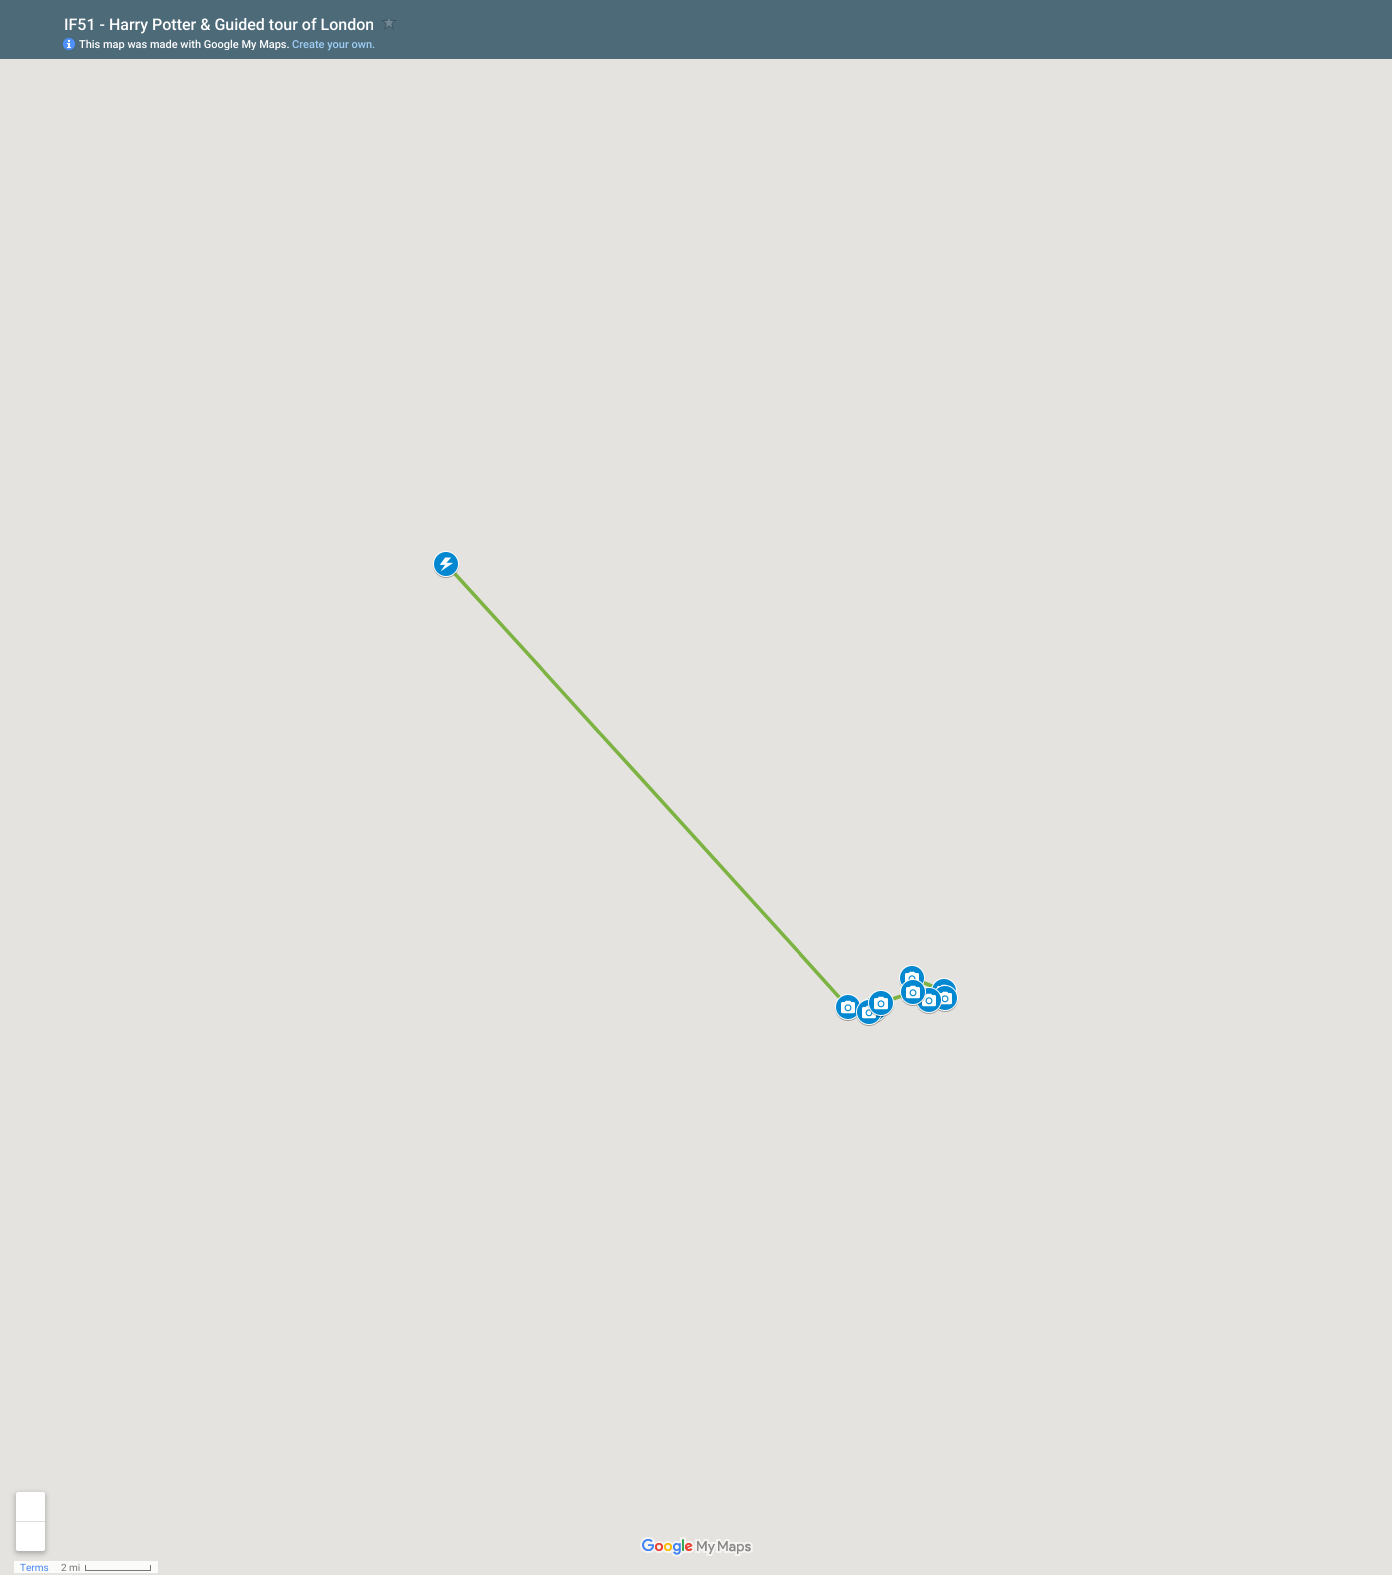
#include <cairo.h>
#include <math.h>
#include <stddef.h>

static cairo_t *c;
static void C(unsigned color){cairo_set_source_rgb(c, (color >> 16) / 255.0, (color >> 8 & 255) / 255.0, (color & 255) / 255.0);}
static void F(const char *family, double size, int italic, int bold){cairo_select_font_face(c, family, italic ? CAIRO_FONT_SLANT_ITALIC : CAIRO_FONT_SLANT_NORMAL,bold ? CAIRO_FONT_WEIGHT_BOLD : CAIRO_FONT_WEIGHT_NORMAL);cairo_set_font_size(c, size);}
static void T(double x, double y, const char *s){cairo_move_to(c, x, y);cairo_show_text(c, s);}
static void R(double x, double y, double w, double h){cairo_rectangle(c, x, y, w, h);cairo_fill(c);}
static void Q(double x, double y, double w, double h, double r){cairo_new_sub_path(c);cairo_arc(c, x + w - r, y + h - r, r, 0, M_PI / 2);cairo_arc(c, x + r, y + h - r, r, M_PI / 2, M_PI);cairo_arc(c, x + r, y + r, r, M_PI, 1.5 * M_PI);cairo_arc(c, x + w - r, y + r, r, 1.5 * M_PI, 2 * M_PI);cairo_close_path(c);}
static void S(double x, double y, double w, double h, double r, double blur, double alpha){cairo_push_group_with_content(c, CAIRO_CONTENT_ALPHA);cairo_set_operator(c, CAIRO_OPERATOR_SOURCE);for (int i = 15; i >= -15 && fmin(w, h) + blur * i / 3 > 0; i -= 2) {double e = blur * i / 6;cairo_set_source_rgba(c, 0, 0, 0, alpha * erfc((i - 1) / 8.5) / 2);Q(x - e, y - e, w + 2 * e, h + 2 * e, fmax(0, fmin(r + e + blur * .6, fmin(w, h) / 2 + e)));cairo_fill(c);}cairo_pattern_t *soft = cairo_pop_group(c);cairo_mask(c, soft);cairo_pattern_destroy(soft);}
static void I(const char *path, double x, double y, double w, double h){cairo_surface_t *image = cairo_image_surface_create_from_png(path);cairo_save(c);cairo_set_source_surface(c, image, x, y);cairo_rectangle(c, x, y, w, h);cairo_fill(c);cairo_restore(c);cairo_surface_destroy(image);}
int main(void) {
cairo_surface_t *surface = cairo_image_surface_create(CAIRO_FORMAT_RGB24, 1392, 1575);
c = cairo_create(surface);
cairo_font_options_t *options = cairo_font_options_create();
cairo_font_options_set_hint_metrics(options, CAIRO_HINT_METRICS_OFF);
cairo_font_options_set_hint_style(options, CAIRO_HINT_STYLE_NONE);
cairo_set_font_options(c, options);
cairo_set_miter_limit(c, 4);
C(0xe5e3df);
cairo_paint(c);
C(0x4d6a79);
R(0,0,1392,59);
F("Roboto Medium",16,0,0);
C(0xffffff);
T(64,30,"IF51 - Harry Potter & Guided tour of London");
I("1.png",381,19,16,11);
I("2.png",63,38,12,12);
cairo_save(c);
cairo_rectangle(c,20,11,1235,39);
cairo_clip(c);
F("Roboto Medium",11,0,0);
T(79,48,"This map was made with Google My Maps.");
cairo_restore(c);
F("Roboto Medium",11,0,0);
C(0x9ecef5);
T(292,48,"Create your own.");
I("13.png",446,567,97,106);
I("3.png",433,551,26,27);
I("16.png",799,950,134,40);
I("17.png",830,990,101,17);
I("4.png",899,965,26,27);
I("5.png",931,978,26,24);
I("6.png",835,994,26,27);
I("11.png",863,996,24,27);
I("12.png",856,999,26,27);
I("7.png",868,990,26,27);
I("10.png",935,985,23,27);
I("9.png",916,987,26,27);
I("8.png",900,979,26,27);
I("14.png",543,668,60,66);
I("15.png",598,734,201,221);
C(0x000000);
S(16,1494,29,59,2,3,.3);
C(0xffffff);
Q(16,1492,29,59,2);
cairo_fill(c);
C(0xdddddd);
R(16,1521,29,1);
I("18.png",640,1537,113,20);
C(0xfbfbfa);
R(14,1561,144,12);
F("Roboto",10,0,0);
C(0x4285f4);
T(20,1571,"Terms");
C(0x777777);
T(61,1571,"2 mi");
R(85,1570,66,1);
R(85,1565,1,6);
R(150,1565,1,6);
cairo_surface_write_to_png(surface, "o.png");
cairo_font_options_destroy(options);
cairo_destroy(c);
cairo_surface_destroy(surface);
return 0;
}
